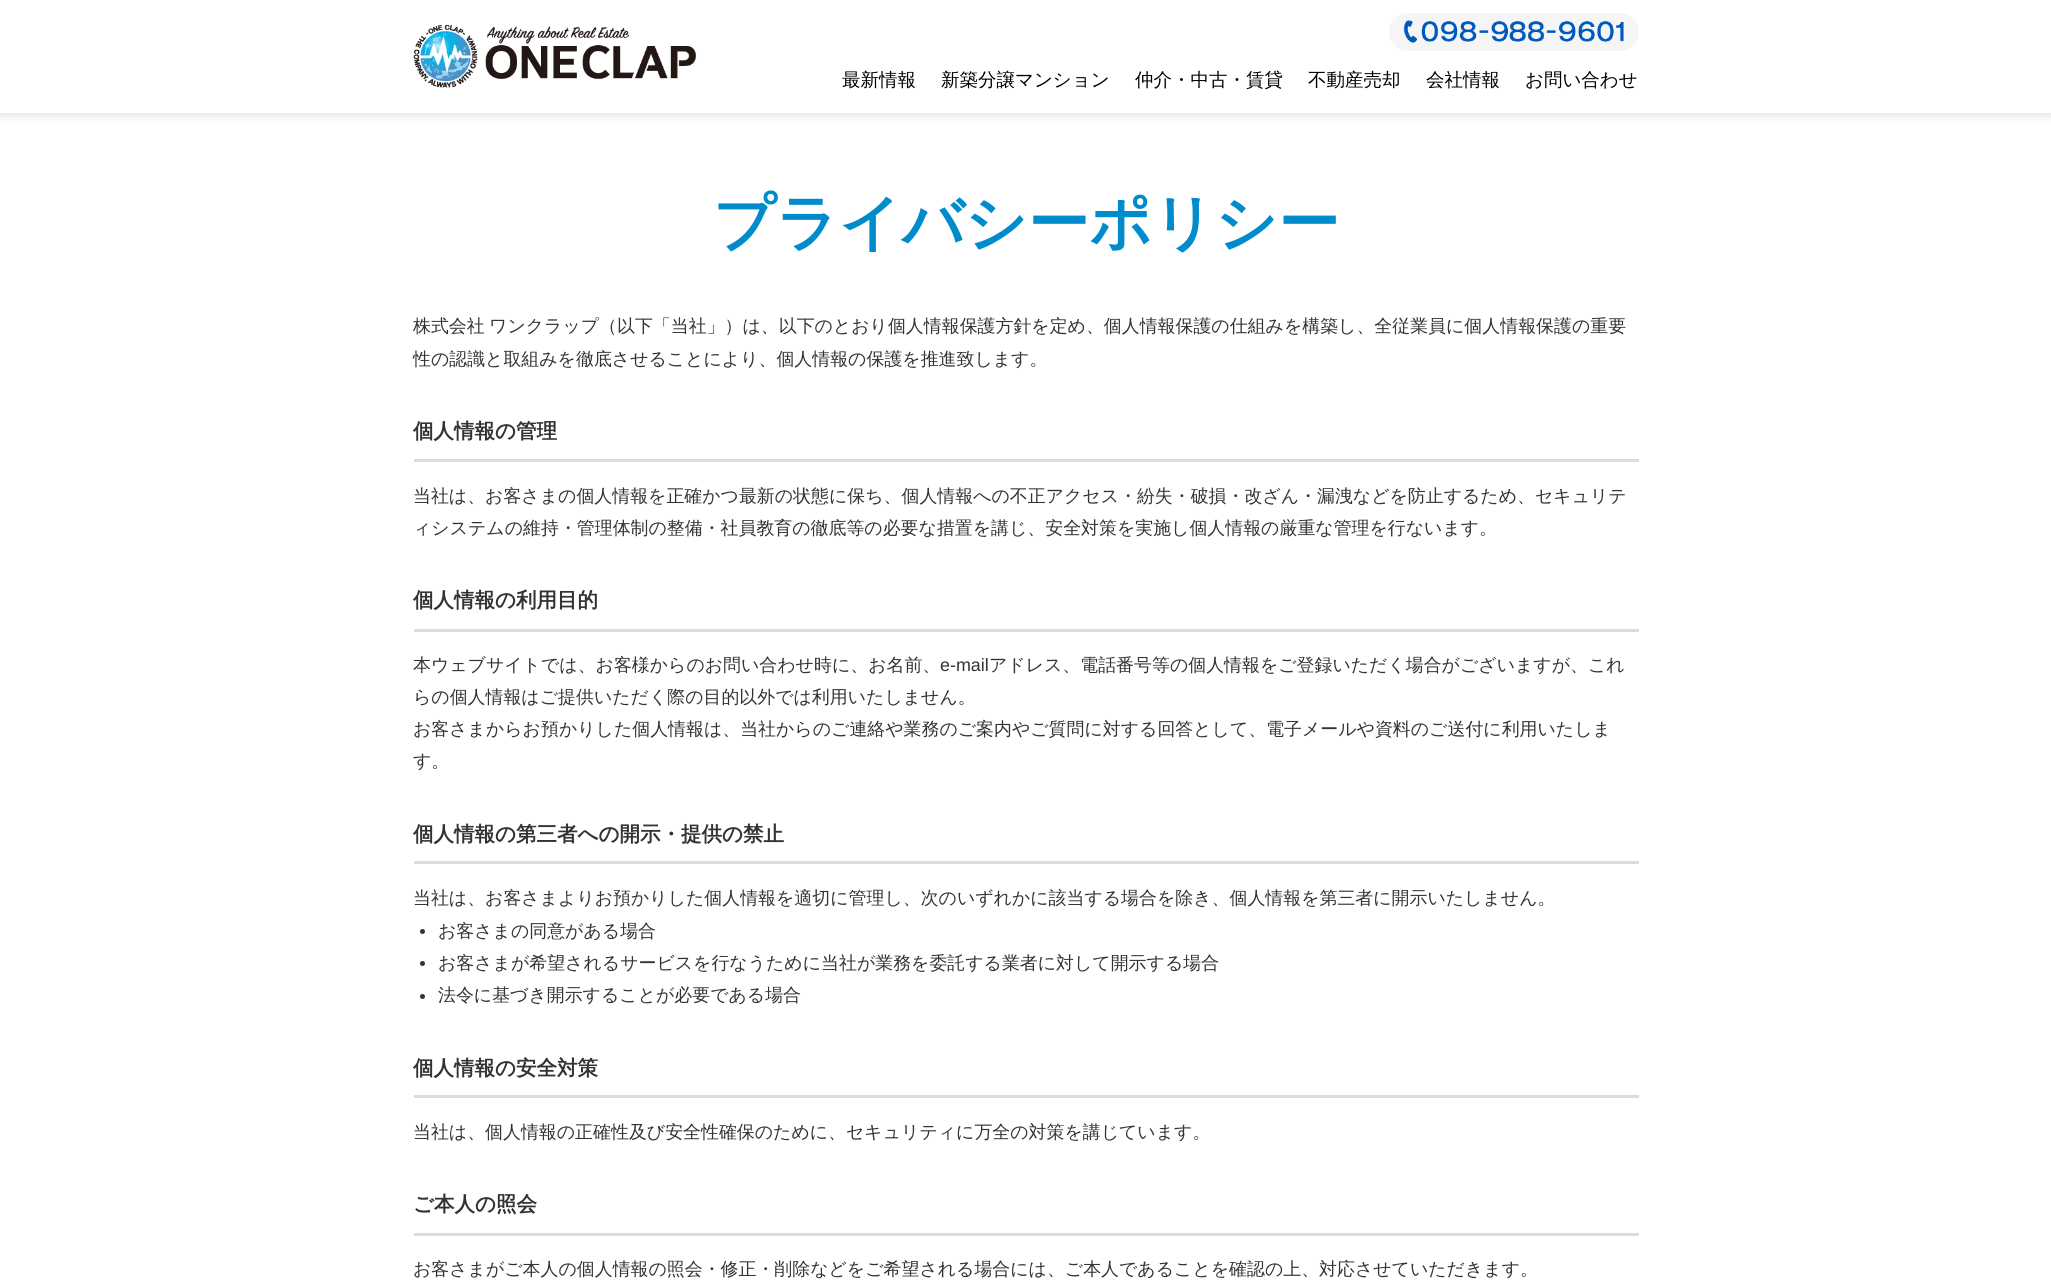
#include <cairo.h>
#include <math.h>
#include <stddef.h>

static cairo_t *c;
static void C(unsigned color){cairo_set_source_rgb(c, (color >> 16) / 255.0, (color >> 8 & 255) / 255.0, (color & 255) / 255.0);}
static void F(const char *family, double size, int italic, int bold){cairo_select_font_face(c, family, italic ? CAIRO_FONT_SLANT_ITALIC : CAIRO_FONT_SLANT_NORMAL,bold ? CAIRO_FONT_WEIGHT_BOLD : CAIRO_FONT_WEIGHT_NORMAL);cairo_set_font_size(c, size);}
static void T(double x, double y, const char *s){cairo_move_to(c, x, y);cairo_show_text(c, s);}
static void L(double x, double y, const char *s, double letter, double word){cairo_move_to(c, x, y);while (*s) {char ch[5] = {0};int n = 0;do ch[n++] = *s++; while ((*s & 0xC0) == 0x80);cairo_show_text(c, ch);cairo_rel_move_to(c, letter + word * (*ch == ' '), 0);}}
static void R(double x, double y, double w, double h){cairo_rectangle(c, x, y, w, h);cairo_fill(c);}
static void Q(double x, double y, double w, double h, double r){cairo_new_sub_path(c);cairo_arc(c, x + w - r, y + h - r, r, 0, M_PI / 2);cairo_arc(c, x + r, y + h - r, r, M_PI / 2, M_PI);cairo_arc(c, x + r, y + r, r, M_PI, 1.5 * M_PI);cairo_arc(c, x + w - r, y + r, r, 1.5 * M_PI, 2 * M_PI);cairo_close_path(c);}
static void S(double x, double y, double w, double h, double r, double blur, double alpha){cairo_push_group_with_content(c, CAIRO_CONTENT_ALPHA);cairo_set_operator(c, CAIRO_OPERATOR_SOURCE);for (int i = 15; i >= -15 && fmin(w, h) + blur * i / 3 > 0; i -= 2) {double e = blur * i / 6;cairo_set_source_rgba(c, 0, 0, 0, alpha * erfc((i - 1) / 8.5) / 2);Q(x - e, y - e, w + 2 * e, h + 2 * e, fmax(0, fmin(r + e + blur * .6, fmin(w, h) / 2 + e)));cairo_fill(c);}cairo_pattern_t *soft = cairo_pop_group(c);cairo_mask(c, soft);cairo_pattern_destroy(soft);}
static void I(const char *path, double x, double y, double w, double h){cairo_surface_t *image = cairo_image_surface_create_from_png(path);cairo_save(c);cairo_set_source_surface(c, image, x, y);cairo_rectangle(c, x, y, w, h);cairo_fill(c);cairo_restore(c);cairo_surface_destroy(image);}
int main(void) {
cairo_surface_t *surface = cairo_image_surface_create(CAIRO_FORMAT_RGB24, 2051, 1283);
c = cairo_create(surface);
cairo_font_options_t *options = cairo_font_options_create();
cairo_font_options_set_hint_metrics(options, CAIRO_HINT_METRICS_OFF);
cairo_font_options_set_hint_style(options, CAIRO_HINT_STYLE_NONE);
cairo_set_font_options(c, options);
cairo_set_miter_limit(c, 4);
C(0xffffff);
cairo_paint(c);
C(0x000000);
S(0,1,2051,113,0,6,.15);
C(0xffffff);
R(0,0,2051,113);
I("1.png",413,25,284,63);
C(0xf5f5f5);
Q(1389,13,250,38,19);
cairo_fill(c);
I("2.png",1403,20,221,23);
F("WenQuanYi Zen Hei Medium",18.5,0,0);
C(0x000000);
T(842,86,"最新情報");
T(941,86,"新築分譲マンション");
T(1135,86,"仲介・中古・賃貸");
T(1308,86,"不動産売却");
T(1426,86,"会社情報");
T(1525,86,"お問い合わせ");
F("WenQuanYi Zen Hei",61.5,0,1);
C(0x008ccc);
T(713,244,"プライバシーポリシー");
F("WenQuanYi Zen Hei Medium",17.92,0,0);
C(0x333333);
L(413,332,"株式会社 ワンクラップ（以下「当社」）は、以下のとおり個人情報保護方針を定め、個人情報保護の仕組みを構築し、全従業員に個人情報保護の重要",0,-1);
T(413,365,"性の認識と取組みを徹底させることにより、個人情報の保護を推進致します。");
C(0xdcdcdc);
R(414,459,1225,3);
F("WenQuanYi Zen Hei",20.5,0,1);
C(0x333333);
T(413,438,"個人情報の管理");
F("WenQuanYi Zen Hei Medium",17.92,0,0);
T(413,502,"当社は、お客さまの個人情報を正確かつ最新の状態に保ち、個人情報への不正アクセス・紛失・破損・改ざん・漏洩などを防止するため、セキュリテ");
T(413,534,"ィシステムの維持・管理体制の整備・社員教育の徹底等の必要な措置を講じ、安全対策を実施し個人情報の厳重な管理を行ないます。");
C(0xdcdcdc);
R(414,629,1225,3);
F("WenQuanYi Zen Hei",20.5,0,1);
C(0x333333);
T(413,607,"個人情報の利用目的");
F("WenQuanYi Zen Hei Medium",17.92,0,0);
T(413,671,"本ウェブサイトでは、お客様からのお問い合わせ時に、お名前、");
F("Liberation Sans",17.92,0,0);
T(940,671,"e-mail");
F("WenQuanYi Zen Hei Medium",17.92,0,0);
T(989,671,"アドレス、電話番号等の個人情報をご登録いただく場合がございますが、これ");
T(413,703,"らの個人情報はご提供いただく際の目的以外では利用いたしません。");
T(413,735,"お客さまからお預かりした個人情報は、当社からのご連絡や業務のご案内やご質問に対する回答として、電子メールや資料のご送付に利用いたしま");
T(413,767,"す。");
C(0xdcdcdc);
R(414,861,1225,3);
F("WenQuanYi Zen Hei",20.5,0,1);
C(0x333333);
T(413,841,"個人情報の第三者への開示・提供の禁止");
F("WenQuanYi Zen Hei Medium",17.92,0,0);
T(413,904,"当社は、お客さまよりお預かりした個人情報を適切に管理し、次のいずれかに該当する場合を除き、個人情報を第三者に開示いたしません。");
cairo_new_path(c);
cairo_arc(c,422.5,931.5,2.5,0,2 * M_PI);
cairo_fill(c);
T(438,937,"お客さまの同意がある場合");
cairo_new_path(c);
cairo_arc(c,422.5,963.5,2.5,0,2 * M_PI);
cairo_fill(c);
T(438,969,"お客さまが希望されるサービスを行なうために当社が業務を委託する業者に対して開示する場合");
cairo_new_path(c);
cairo_arc(c,422.5,996.5,2.5,0,2 * M_PI);
cairo_fill(c);
T(438,1001,"法令に基づき開示することが必要である場合");
C(0xdcdcdc);
R(414,1095,1225,3);
F("WenQuanYi Zen Hei",20.5,0,1);
C(0x333333);
T(413,1075,"個人情報の安全対策");
F("WenQuanYi Zen Hei Medium",17.92,0,0);
T(413,1138,"当社は、個人情報の正確性及び安全性確保のために、セキュリティに万全の対策を講じています。");
C(0xdcdcdc);
R(414,1233,1225,3);
F("WenQuanYi Zen Hei",20.5,0,1);
C(0x333333);
T(413,1211,"ご本人の照会");
F("WenQuanYi Zen Hei Medium",17.92,0,0);
T(413,1275,"お客さまがご本人の個人情報の照会・修正・削除などをご希望される場合には、ご本人であることを確認の上、対応させていただきます。");
cairo_surface_write_to_png(surface, "o.png");
cairo_font_options_destroy(options);
cairo_destroy(c);
cairo_surface_destroy(surface);
return 0;
}
